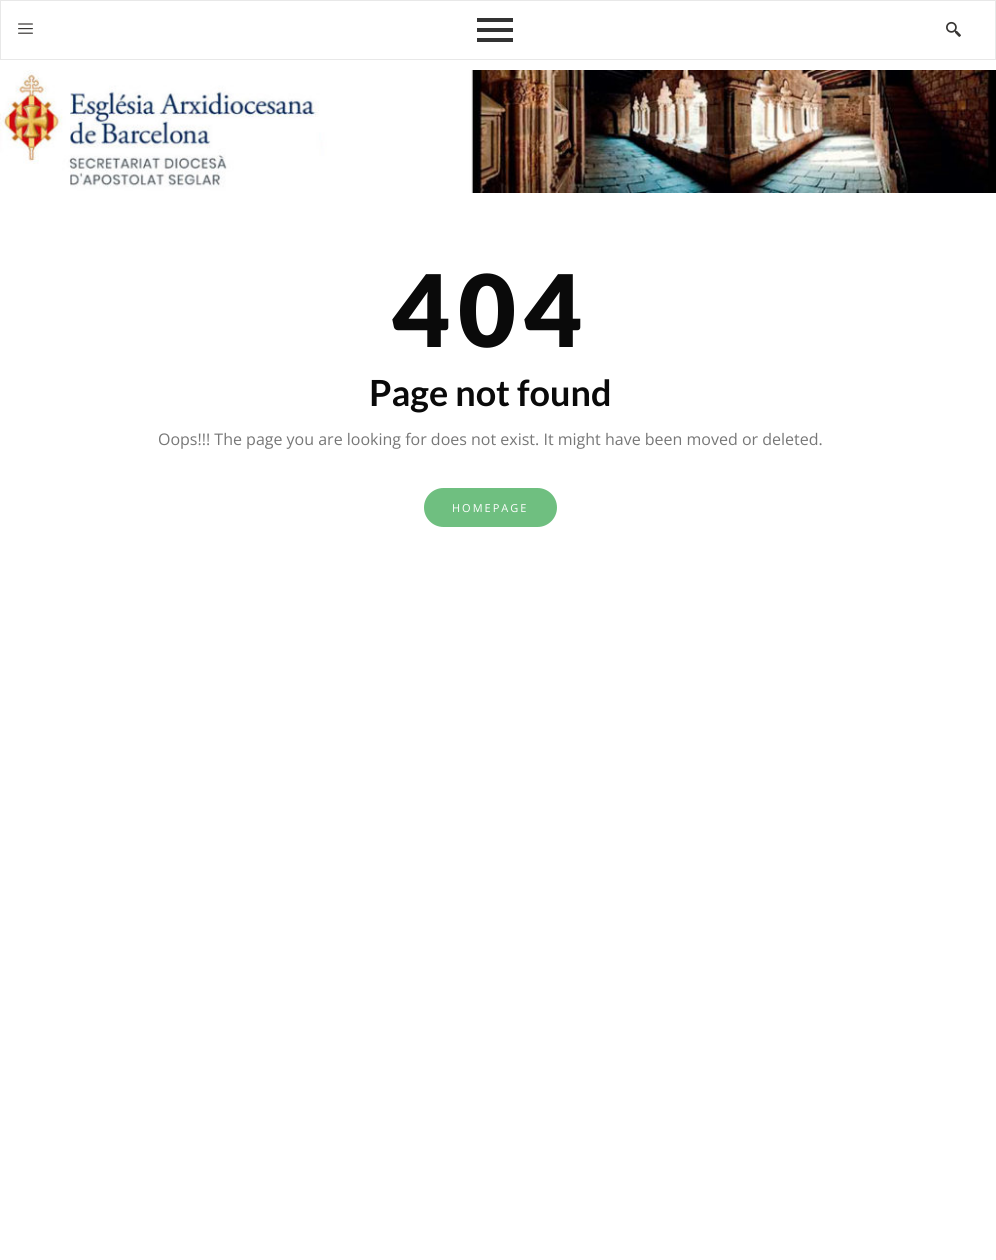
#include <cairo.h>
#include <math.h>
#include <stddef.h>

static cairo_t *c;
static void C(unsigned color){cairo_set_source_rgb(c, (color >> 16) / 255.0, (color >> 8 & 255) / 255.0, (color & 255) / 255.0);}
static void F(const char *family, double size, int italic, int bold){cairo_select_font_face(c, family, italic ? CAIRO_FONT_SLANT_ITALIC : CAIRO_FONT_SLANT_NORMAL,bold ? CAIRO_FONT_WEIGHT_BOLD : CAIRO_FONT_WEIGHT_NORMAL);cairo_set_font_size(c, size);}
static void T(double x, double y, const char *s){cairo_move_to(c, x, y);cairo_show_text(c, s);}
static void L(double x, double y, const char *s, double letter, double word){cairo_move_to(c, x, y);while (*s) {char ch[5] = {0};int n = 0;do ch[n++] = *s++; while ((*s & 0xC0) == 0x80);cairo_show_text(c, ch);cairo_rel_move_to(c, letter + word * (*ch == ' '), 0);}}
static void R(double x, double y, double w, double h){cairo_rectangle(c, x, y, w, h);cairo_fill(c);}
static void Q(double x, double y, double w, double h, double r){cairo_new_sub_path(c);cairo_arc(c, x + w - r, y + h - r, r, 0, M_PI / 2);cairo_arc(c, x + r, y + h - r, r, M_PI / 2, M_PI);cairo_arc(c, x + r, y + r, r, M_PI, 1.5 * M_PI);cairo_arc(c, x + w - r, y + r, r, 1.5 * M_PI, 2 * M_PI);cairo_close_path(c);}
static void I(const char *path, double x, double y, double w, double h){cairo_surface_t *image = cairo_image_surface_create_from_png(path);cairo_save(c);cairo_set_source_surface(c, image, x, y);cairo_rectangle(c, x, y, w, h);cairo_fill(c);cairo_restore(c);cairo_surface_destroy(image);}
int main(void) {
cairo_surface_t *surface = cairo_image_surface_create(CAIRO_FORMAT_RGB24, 996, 1260);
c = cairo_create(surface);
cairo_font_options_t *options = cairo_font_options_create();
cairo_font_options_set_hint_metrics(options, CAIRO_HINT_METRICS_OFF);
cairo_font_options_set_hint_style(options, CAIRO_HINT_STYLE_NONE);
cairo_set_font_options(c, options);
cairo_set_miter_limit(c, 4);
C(0xffffff);
cairo_paint(c);
cairo_rectangle(c,.5,.5,995,59);
C(0xe8e8e8);
cairo_set_line_width(c,1);
cairo_stroke(c);
I("1.png",18,23,15,11);
C(0x333333);
R(477,18,36,4);
R(477,28,36,4);
R(477,38,36,4);
I("2.png",946,21,15,16);
I("3.png",0,70,996,123);
F("Lato Black",100,0,0);
C(0x0a0a0a);
L(392,347,"404",8,0);
F("Lato",36,0,1);
T(369,406,"Page not found");
F("Open Sans",16,0,0);
C(0x777777);
T(158,445,"Oops!!! The page you are looking for does not exist. It might have been moved or deleted.");
C(0x6fbf80);
Q(424,488,133,39,19.5);
cairo_fill(c);
F("Open Sans",11,0,0);
C(0xffffff);
L(452,512,"HOMEPAGE",2,0);
cairo_surface_write_to_png(surface, "o.png");
cairo_font_options_destroy(options);
cairo_destroy(c);
cairo_surface_destroy(surface);
return 0;
}
